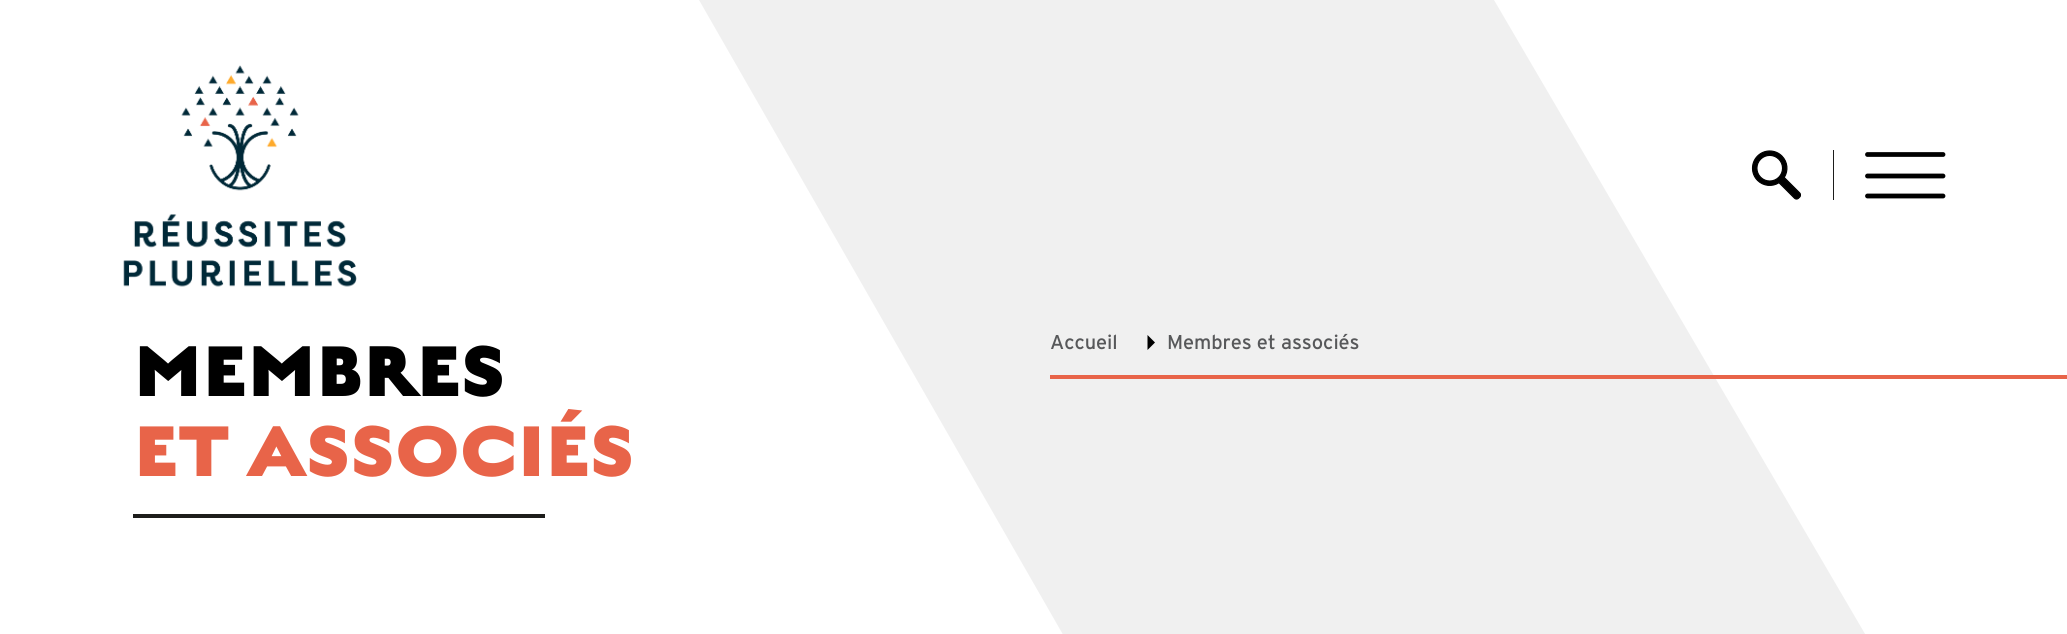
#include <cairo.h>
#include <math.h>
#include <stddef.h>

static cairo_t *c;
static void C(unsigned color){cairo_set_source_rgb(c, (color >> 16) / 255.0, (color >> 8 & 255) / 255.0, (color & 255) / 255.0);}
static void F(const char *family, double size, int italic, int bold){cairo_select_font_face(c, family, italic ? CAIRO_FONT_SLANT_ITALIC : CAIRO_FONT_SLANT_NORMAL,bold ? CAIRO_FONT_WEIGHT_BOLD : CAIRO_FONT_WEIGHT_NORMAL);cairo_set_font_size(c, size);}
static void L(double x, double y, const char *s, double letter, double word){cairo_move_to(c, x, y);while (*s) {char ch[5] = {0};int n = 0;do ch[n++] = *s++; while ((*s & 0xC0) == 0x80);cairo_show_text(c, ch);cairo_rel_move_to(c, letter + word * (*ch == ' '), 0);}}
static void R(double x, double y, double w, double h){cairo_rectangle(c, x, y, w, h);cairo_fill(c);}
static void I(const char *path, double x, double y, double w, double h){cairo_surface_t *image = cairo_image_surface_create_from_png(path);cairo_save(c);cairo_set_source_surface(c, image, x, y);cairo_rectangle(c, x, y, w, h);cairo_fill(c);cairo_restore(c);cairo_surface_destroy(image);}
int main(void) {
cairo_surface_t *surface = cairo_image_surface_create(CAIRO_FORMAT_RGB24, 2067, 634);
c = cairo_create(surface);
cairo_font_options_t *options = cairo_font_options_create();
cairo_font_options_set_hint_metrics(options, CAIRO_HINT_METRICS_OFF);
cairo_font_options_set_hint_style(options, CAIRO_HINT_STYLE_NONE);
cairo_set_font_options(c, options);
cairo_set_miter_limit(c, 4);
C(0xffffff);
cairo_paint(c);
I("1.png",123,65,234,222);
C(0xf0f0f0);
cairo_new_path(c);
cairo_move_to(c,699,0);
cairo_line_to(c,2067,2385);
cairo_line_to(c,2067,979);
cairo_line_to(c,1494,0);
cairo_close_path(c);
cairo_fill(c);
C(0x1d1d1b);
R(1833,150,1,50);
I("2.png",1751,150,50,50);
cairo_new_path(c);
cairo_move_to(c,1943,154.5);
cairo_line_to(c,1867.5,154.5);
C(0x000000);
cairo_set_line_width(c,4.8);
cairo_set_line_cap(c,CAIRO_LINE_CAP_ROUND);
cairo_set_line_join(c,CAIRO_LINE_JOIN_ROUND);
cairo_stroke(c);
cairo_new_path(c);
cairo_move_to(c,1943,176);
cairo_line_to(c,1867.5,176);
cairo_stroke(c);
cairo_new_path(c);
cairo_move_to(c,1943,196);
cairo_line_to(c,1867.5,196);
cairo_stroke(c);
F("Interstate",20,0,0);
C(0x57585a);
L(1050,349,"Accueil",-.1,0);
C(0x000000);
cairo_new_path(c);
cairo_move_to(c,1147.5,350);
cairo_line_to(c,1147.5,335);
cairo_line_to(c,1155,342.5);
cairo_close_path(c);
cairo_fill(c);
C(0x57585a);
L(1167,349,"Membres et associés",-.1,0);
C(0xe86449);
R(1050,375,1017,4);
F("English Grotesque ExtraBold",80,0,0);
C(0x000000);
L(133,396,"MEMBRES",-1.25,0);
C(0xe86449);
L(133,476,"ET ASSOCIÉS",-1.25,0);
C(0x1d1d1b);
R(133,514,412,4);
cairo_surface_write_to_png(surface, "o.png");
cairo_font_options_destroy(options);
cairo_destroy(c);
cairo_surface_destroy(surface);
return 0;
}
